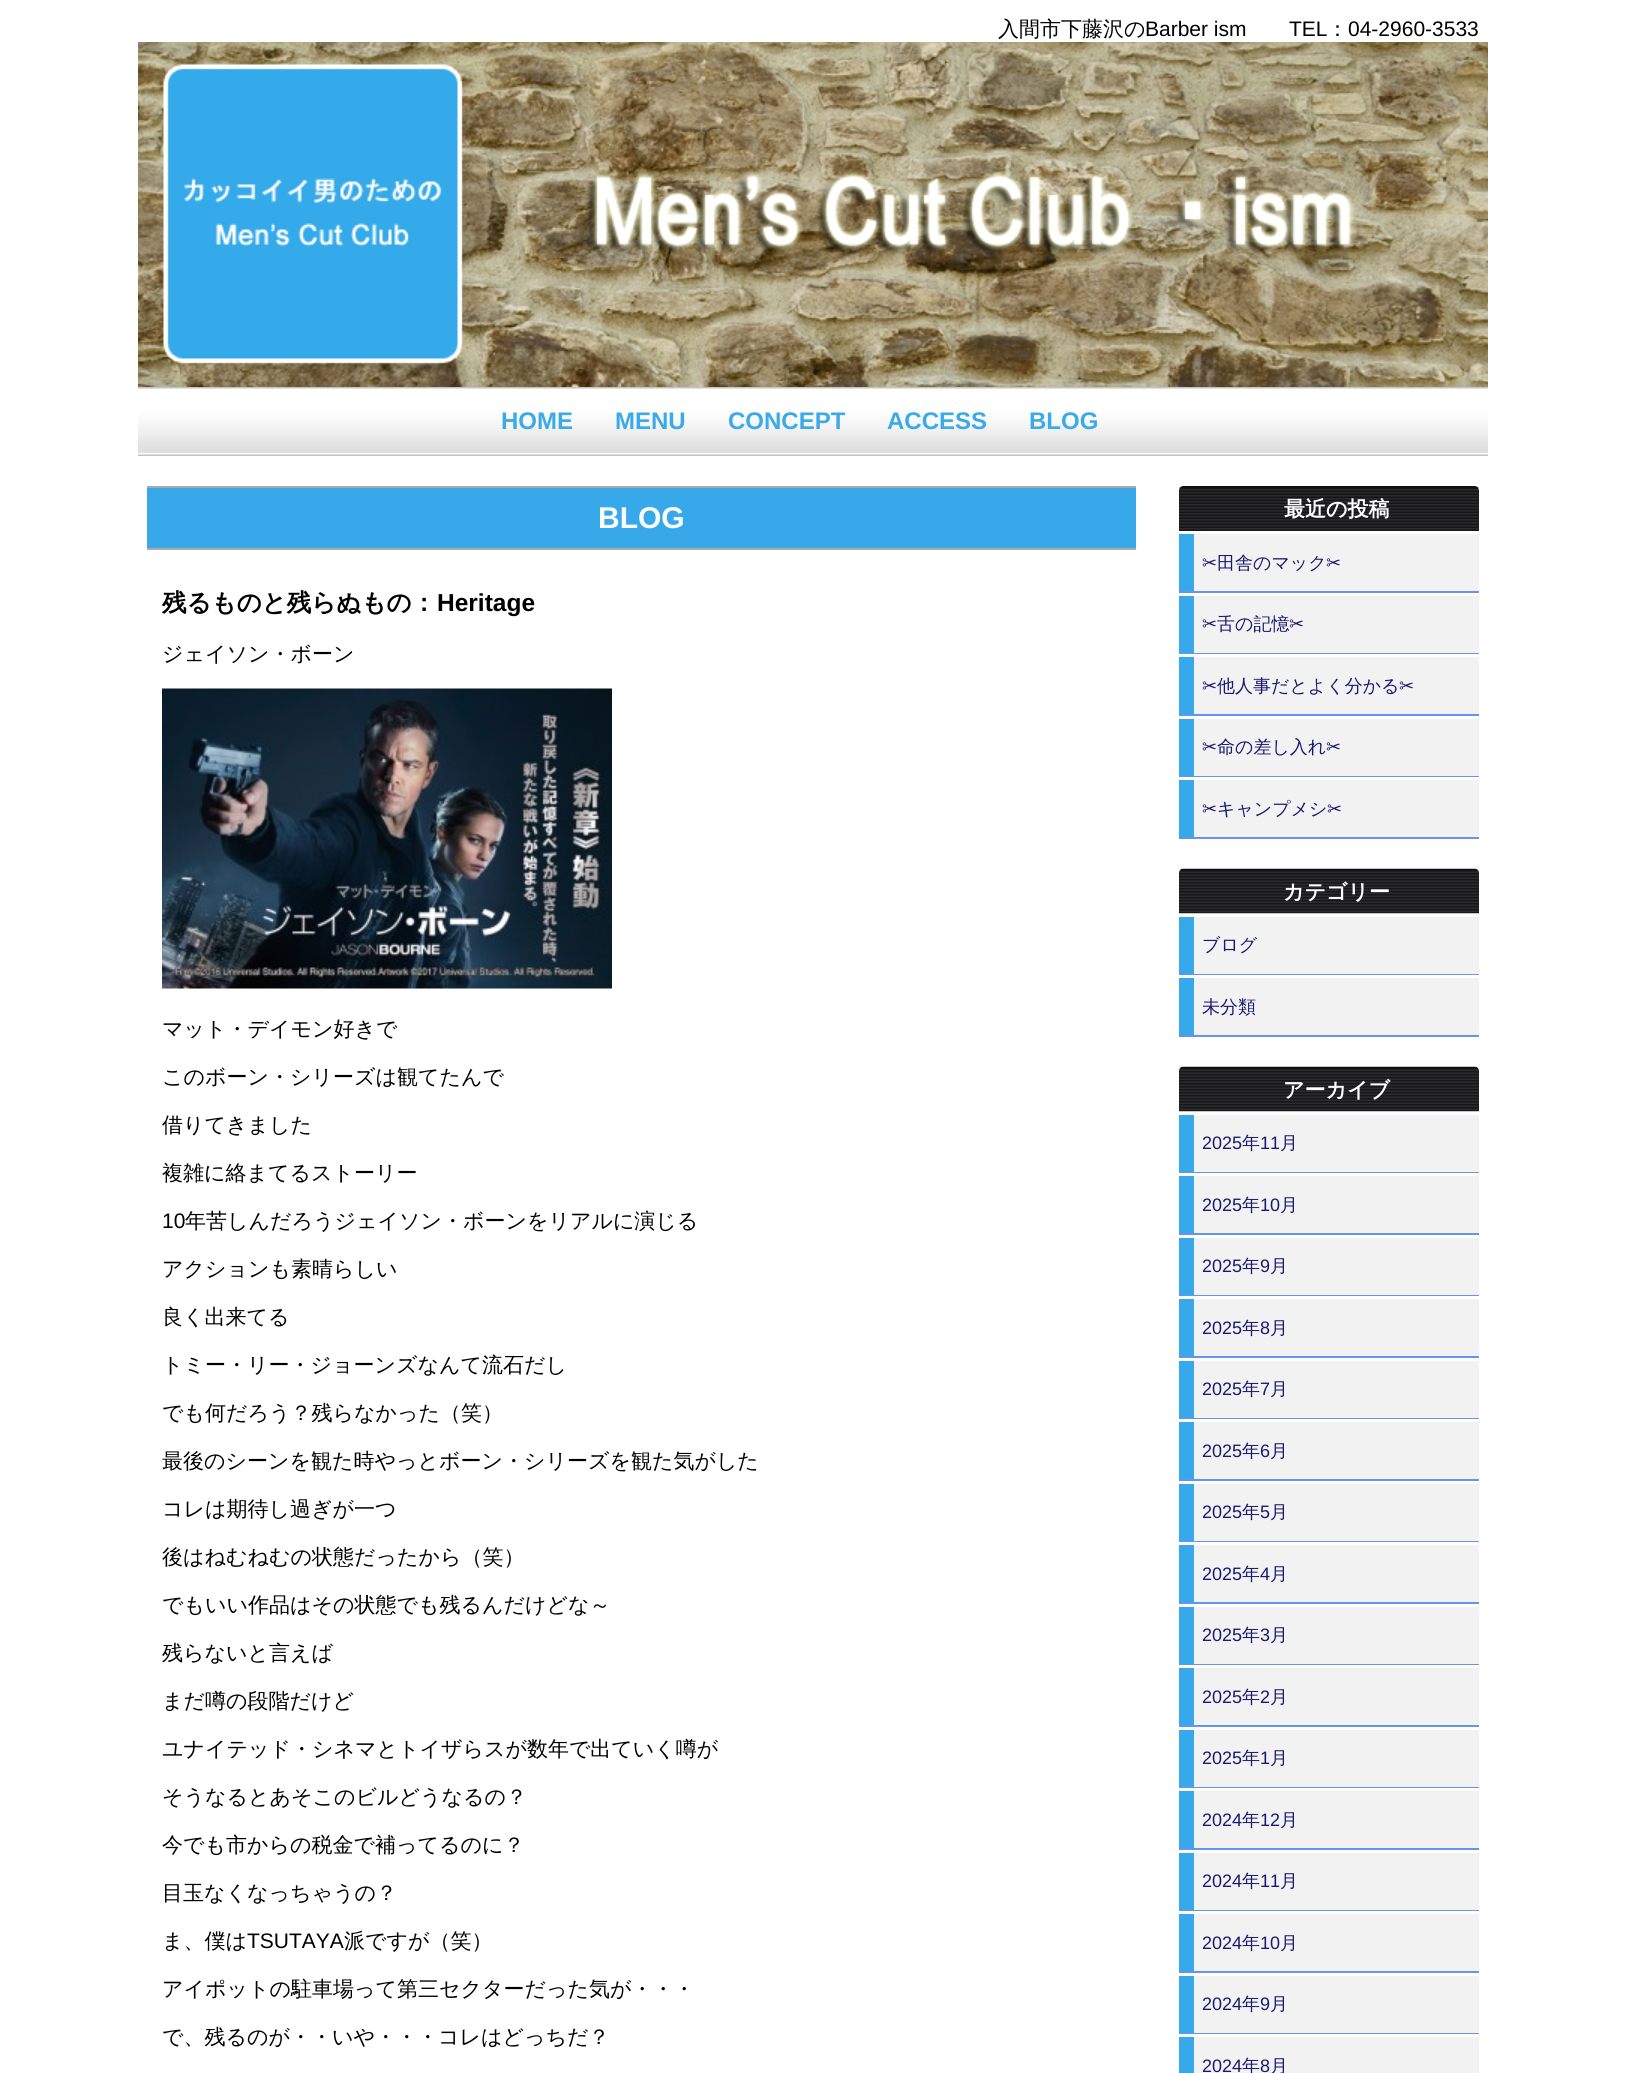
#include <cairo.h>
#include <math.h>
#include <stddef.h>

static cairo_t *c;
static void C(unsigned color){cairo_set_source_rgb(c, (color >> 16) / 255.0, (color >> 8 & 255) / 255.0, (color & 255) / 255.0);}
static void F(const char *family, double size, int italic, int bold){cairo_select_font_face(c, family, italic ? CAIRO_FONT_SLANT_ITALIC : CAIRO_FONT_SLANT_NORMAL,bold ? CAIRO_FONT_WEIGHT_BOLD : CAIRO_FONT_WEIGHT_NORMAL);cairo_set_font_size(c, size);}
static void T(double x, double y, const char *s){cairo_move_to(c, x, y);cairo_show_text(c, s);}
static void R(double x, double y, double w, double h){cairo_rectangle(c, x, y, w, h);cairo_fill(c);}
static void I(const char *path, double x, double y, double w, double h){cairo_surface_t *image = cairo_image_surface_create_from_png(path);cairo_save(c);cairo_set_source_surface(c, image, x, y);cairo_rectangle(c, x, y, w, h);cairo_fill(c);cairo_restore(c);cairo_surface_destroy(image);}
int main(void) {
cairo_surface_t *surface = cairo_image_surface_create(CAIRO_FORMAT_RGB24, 1625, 2073);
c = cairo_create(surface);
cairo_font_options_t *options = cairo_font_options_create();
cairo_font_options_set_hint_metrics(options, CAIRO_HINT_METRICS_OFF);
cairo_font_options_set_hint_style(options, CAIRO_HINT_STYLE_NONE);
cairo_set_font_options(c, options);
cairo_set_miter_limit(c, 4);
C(0xffffff);
cairo_paint(c);
F("WenQuanYi Zen Hei Medium",21,0,0);
C(0x000000);
T(998,36,"入間市下藤沢の");
F("Liberation Sans",21,0,0);
T(1145,36,"Barber ism");
T(1289,36,"TEL");
F("WenQuanYi Zen Hei Medium",21,0,0);
T(1327,36,"：");
F("Liberation Sans",21,0,0);
T(1348,36,"04-2960-3533");
I("1.png",138,42,1350,345);
I("2.png",138,387,1350,69);
F("Liberation Sans",24,0,1);
C(0x3baae9);
T(501,429,"HOME");
T(615,429,"MENU");
T(728,429,"CONCEPT");
T(887,429,"ACCESS");
T(1029,429,"BLOG");
C(0x37a8e9);
R(147,488,989,60);
C(0xaaaaaa);
R(147,486,989,2);
R(147,548,989,2);
F("Liberation Sans",30,0,1);
C(0xffffff);
T(598,528,"BLOG");
F("WenQuanYi Zen Hei",24.5,0,1);
C(0x000000);
T(162,611,"残るものと残らぬもの：");
F("Liberation Sans",24.5,0,1);
T(437,611,"Heritage");
F("WenQuanYi Zen Hei Medium",21,0,0);
T(162,661,"ジェイソン・ボーン");
I("3.png",162,688,450,301);
T(162,1036,"マット・デイモン好きで");
T(162,1084,"このボーン・シリーズは観てたんで");
T(162,1132,"借りてきました");
T(162,1180,"複雑に絡まてるストーリー");
F("Liberation Sans",21,0,0);
T(162,1228,"10");
F("WenQuanYi Zen Hei Medium",21,0,0);
T(185,1228,"年苦しんだろうジェイソン・ボーンをリアルに演じる");
T(162,1276,"アクションも素晴らしい");
T(162,1324,"良く出来てる");
T(162,1372,"トミー・リー・ジョーンズなんて流石だし");
T(162,1420,"でも何だろう？残らなかった（笑）");
T(162,1468,"最後のシーンを観た時やっとボーン・シリーズを観た気がした");
T(162,1516,"コレは期待し過ぎが一つ");
T(162,1564,"後はねむねむの状態だったから（笑）");
T(162,1612,"でもいい作品はその状態でも残るんだけどな～");
T(162,1660,"残らないと言えば");
T(162,1708,"まだ噂の段階だけど");
T(162,1756,"ユナイテッド・シネマとトイザらスが数年で出ていく噂が");
T(162,1804,"そうなるとあそこのビルどうなるの？");
T(162,1852,"今でも市からの税金で補ってるのに？");
T(162,1900,"目玉なくなっちゃうの？");
T(162,1948,"ま、僕は");
F("Liberation Sans",21,0,0);
T(247,1948,"TSUTAYA");
F("WenQuanYi Zen Hei Medium",21,0,0);
T(344,1948,"派ですが（笑）");
T(162,1996,"アイポットの駐車場って第三セクターだった気が・・・");
T(162,2044,"で、残るのが・・いや・・・コレはどっちだ？");
I("4.png",1179,486,300,45);
F("WenQuanYi Zen Hei",21,0,1);
C(0xffffff);
T(1284,516,"最近の投稿");
C(0x6495ed);
R(1179,591,300,2);
C(0x37a8e9);
R(1179,534,15,57);
C(0xf2f2f2);
R(1194,534,285,57);
F("DejaVu Sans",18,0,0);
C(0x191970);
T(1202,569,"✂");
F("WenQuanYi Zen Hei Medium",18,0,0);
T(1217,569,"田舎のマック");
F("DejaVu Sans",18,0,0);
T(1326,569,"✂");
C(0x6495ed);
R(1179,653,300,1);
C(0x37a8e9);
R(1179,596,15,57);
C(0xf2f2f2);
R(1194,596,285,57);
C(0x191970);
T(1202,630,"✂");
F("WenQuanYi Zen Hei Medium",18,0,0);
T(1217,630,"舌の記憶");
F("DejaVu Sans",18,0,0);
T(1289,630,"✂");
C(0x6495ed);
R(1179,714,300,2);
C(0x37a8e9);
R(1179,657,15,57);
C(0xf2f2f2);
R(1194,657,285,57);
C(0x191970);
T(1202,692,"✂");
F("WenQuanYi Zen Hei Medium",18,0,0);
T(1217,692,"他人事だとよく分かる");
F("DejaVu Sans",18,0,0);
T(1399,692,"✂");
C(0x6495ed);
R(1179,776,300,1);
C(0x37a8e9);
R(1179,719,15,57);
C(0xf2f2f2);
R(1194,719,285,57);
C(0x191970);
T(1202,753,"✂");
F("WenQuanYi Zen Hei Medium",18,0,0);
T(1217,753,"命の差し入れ");
F("DejaVu Sans",18,0,0);
T(1326,753,"✂");
C(0x6495ed);
R(1179,837,300,2);
C(0x37a8e9);
R(1179,780,15,57);
C(0xf2f2f2);
R(1194,780,285,57);
C(0x191970);
T(1202,815,"✂");
F("WenQuanYi Zen Hei Medium",18,0,0);
T(1217,815,"キャンプメシ");
F("DejaVu Sans",18,0,0);
T(1327,815,"✂");
I("5.png",1179,868,300,46);
F("WenQuanYi Zen Hei",21,0,1);
C(0xffffff);
T(1283,899,"カテゴリー");
C(0x6495ed);
R(1179,974,300,1);
C(0x37a8e9);
R(1179,917,15,57);
C(0xf2f2f2);
R(1194,917,285,57);
F("WenQuanYi Zen Hei Medium",18,0,0);
C(0x191970);
T(1202,951,"ブログ");
C(0x6495ed);
R(1179,1035,300,2);
C(0x37a8e9);
R(1179,978,15,57);
C(0xf2f2f2);
R(1194,978,285,57);
C(0x191970);
T(1202,1013,"未分類");
I("5.png",1179,1066,300,46);
F("WenQuanYi Zen Hei",21,0,1);
C(0xffffff);
T(1283,1097,"アーカイブ");
C(0x6495ed);
R(1179,1172,300,1);
C(0x37a8e9);
R(1179,1115,15,57);
C(0xf2f2f2);
R(1194,1115,285,57);
F("Liberation Sans",18,0,0);
C(0x191970);
T(1202,1149,"2025");
F("WenQuanYi Zen Hei Medium",18,0,0);
T(1242,1149,"年");
F("Liberation Sans",18,0,0);
T(1260,1149,"11");
F("WenQuanYi Zen Hei Medium",18,0,0);
T(1280,1149,"月");
C(0x6495ed);
R(1179,1233,300,2);
C(0x37a8e9);
R(1179,1176,15,57);
C(0xf2f2f2);
R(1194,1176,285,57);
F("Liberation Sans",18,0,0);
C(0x191970);
T(1202,1211,"2025");
F("WenQuanYi Zen Hei Medium",18,0,0);
T(1242,1211,"年");
F("Liberation Sans",18,0,0);
T(1260,1211,"10");
F("WenQuanYi Zen Hei Medium",18,0,0);
T(1280,1211,"月");
C(0x6495ed);
R(1179,1295,300,1);
C(0x37a8e9);
R(1179,1238,15,57);
C(0xf2f2f2);
R(1194,1238,285,57);
F("Liberation Sans",18,0,0);
C(0x191970);
T(1202,1272,"2025");
F("WenQuanYi Zen Hei Medium",18,0,0);
T(1242,1272,"年");
F("Liberation Sans",18,0,0);
T(1260,1272,"9");
F("WenQuanYi Zen Hei Medium",18,0,0);
T(1270,1272,"月");
C(0x6495ed);
R(1179,1356,300,2);
C(0x37a8e9);
R(1179,1299,15,57);
C(0xf2f2f2);
R(1194,1299,285,57);
F("Liberation Sans",18,0,0);
C(0x191970);
T(1202,1334,"2025");
F("WenQuanYi Zen Hei Medium",18,0,0);
T(1242,1334,"年");
F("Liberation Sans",18,0,0);
T(1260,1334,"8");
F("WenQuanYi Zen Hei Medium",18,0,0);
T(1270,1334,"月");
C(0x6495ed);
R(1179,1418,300,1);
C(0x37a8e9);
R(1179,1361,15,57);
C(0xf2f2f2);
R(1194,1361,285,57);
F("Liberation Sans",18,0,0);
C(0x191970);
T(1202,1395,"2025");
F("WenQuanYi Zen Hei Medium",18,0,0);
T(1242,1395,"年");
F("Liberation Sans",18,0,0);
T(1260,1395,"7");
F("WenQuanYi Zen Hei Medium",18,0,0);
T(1270,1395,"月");
C(0x6495ed);
R(1179,1479,300,2);
C(0x37a8e9);
R(1179,1422,15,57);
C(0xf2f2f2);
R(1194,1422,285,57);
F("Liberation Sans",18,0,0);
C(0x191970);
T(1202,1457,"2025");
F("WenQuanYi Zen Hei Medium",18,0,0);
T(1242,1457,"年");
F("Liberation Sans",18,0,0);
T(1260,1457,"6");
F("WenQuanYi Zen Hei Medium",18,0,0);
T(1270,1457,"月");
C(0x6495ed);
R(1179,1541,300,1);
C(0x37a8e9);
R(1179,1484,15,57);
C(0xf2f2f2);
R(1194,1484,285,57);
F("Liberation Sans",18,0,0);
C(0x191970);
T(1202,1518,"2025");
F("WenQuanYi Zen Hei Medium",18,0,0);
T(1242,1518,"年");
F("Liberation Sans",18,0,0);
T(1260,1518,"5");
F("WenQuanYi Zen Hei Medium",18,0,0);
T(1270,1518,"月");
C(0x6495ed);
R(1179,1602,300,2);
C(0x37a8e9);
R(1179,1545,15,57);
C(0xf2f2f2);
R(1194,1545,285,57);
F("Liberation Sans",18,0,0);
C(0x191970);
T(1202,1580,"2025");
F("WenQuanYi Zen Hei Medium",18,0,0);
T(1242,1580,"年");
F("Liberation Sans",18,0,0);
T(1260,1580,"4");
F("WenQuanYi Zen Hei Medium",18,0,0);
T(1270,1580,"月");
C(0x6495ed);
R(1179,1664,300,1);
C(0x37a8e9);
R(1179,1607,15,57);
C(0xf2f2f2);
R(1194,1607,285,57);
F("Liberation Sans",18,0,0);
C(0x191970);
T(1202,1641,"2025");
F("WenQuanYi Zen Hei Medium",18,0,0);
T(1242,1641,"年");
F("Liberation Sans",18,0,0);
T(1260,1641,"3");
F("WenQuanYi Zen Hei Medium",18,0,0);
T(1270,1641,"月");
C(0x6495ed);
R(1179,1725,300,2);
C(0x37a8e9);
R(1179,1668,15,57);
C(0xf2f2f2);
R(1194,1668,285,57);
F("Liberation Sans",18,0,0);
C(0x191970);
T(1202,1703,"2025");
F("WenQuanYi Zen Hei Medium",18,0,0);
T(1242,1703,"年");
F("Liberation Sans",18,0,0);
T(1260,1703,"2");
F("WenQuanYi Zen Hei Medium",18,0,0);
T(1270,1703,"月");
C(0x6495ed);
R(1179,1787,300,1);
C(0x37a8e9);
R(1179,1730,15,57);
C(0xf2f2f2);
R(1194,1730,285,57);
F("Liberation Sans",18,0,0);
C(0x191970);
T(1202,1764,"2025");
F("WenQuanYi Zen Hei Medium",18,0,0);
T(1242,1764,"年");
F("Liberation Sans",18,0,0);
T(1260,1764,"1");
F("WenQuanYi Zen Hei Medium",18,0,0);
T(1270,1764,"月");
C(0x6495ed);
R(1179,1848,300,2);
C(0x37a8e9);
R(1179,1791,15,57);
C(0xf2f2f2);
R(1194,1791,285,57);
F("Liberation Sans",18,0,0);
C(0x191970);
T(1202,1826,"2024");
F("WenQuanYi Zen Hei Medium",18,0,0);
T(1242,1826,"年");
F("Liberation Sans",18,0,0);
T(1260,1826,"12");
F("WenQuanYi Zen Hei Medium",18,0,0);
T(1280,1826,"月");
C(0x6495ed);
R(1179,1910,300,1);
C(0x37a8e9);
R(1179,1853,15,57);
C(0xf2f2f2);
R(1194,1853,285,57);
F("Liberation Sans",18,0,0);
C(0x191970);
T(1202,1887,"2024");
F("WenQuanYi Zen Hei Medium",18,0,0);
T(1242,1887,"年");
F("Liberation Sans",18,0,0);
T(1260,1887,"11");
F("WenQuanYi Zen Hei Medium",18,0,0);
T(1280,1887,"月");
C(0x6495ed);
R(1179,1971,300,2);
C(0x37a8e9);
R(1179,1914,15,57);
C(0xf2f2f2);
R(1194,1914,285,57);
F("Liberation Sans",18,0,0);
C(0x191970);
T(1202,1949,"2024");
F("WenQuanYi Zen Hei Medium",18,0,0);
T(1242,1949,"年");
F("Liberation Sans",18,0,0);
T(1260,1949,"10");
F("WenQuanYi Zen Hei Medium",18,0,0);
T(1280,1949,"月");
C(0x6495ed);
R(1179,2033,300,1);
C(0x37a8e9);
R(1179,1976,15,57);
C(0xf2f2f2);
R(1194,1976,285,57);
F("Liberation Sans",18,0,0);
C(0x191970);
T(1202,2010,"2024");
F("WenQuanYi Zen Hei Medium",18,0,0);
T(1242,2010,"年");
F("Liberation Sans",18,0,0);
T(1260,2010,"9");
F("WenQuanYi Zen Hei Medium",18,0,0);
T(1270,2010,"月");
C(0x37a8e9);
R(1179,2037,15,36);
C(0xf2f2f2);
R(1194,2037,285,36);
F("Liberation Sans",18,0,0);
C(0x191970);
T(1202,2072,"2024");
F("WenQuanYi Zen Hei Medium",18,0,0);
T(1242,2072,"年");
F("Liberation Sans",18,0,0);
T(1260,2072,"8");
F("WenQuanYi Zen Hei Medium",18,0,0);
T(1270,2072,"月");
cairo_surface_write_to_png(surface, "o.png");
cairo_font_options_destroy(options);
cairo_destroy(c);
cairo_surface_destroy(surface);
return 0;
}
